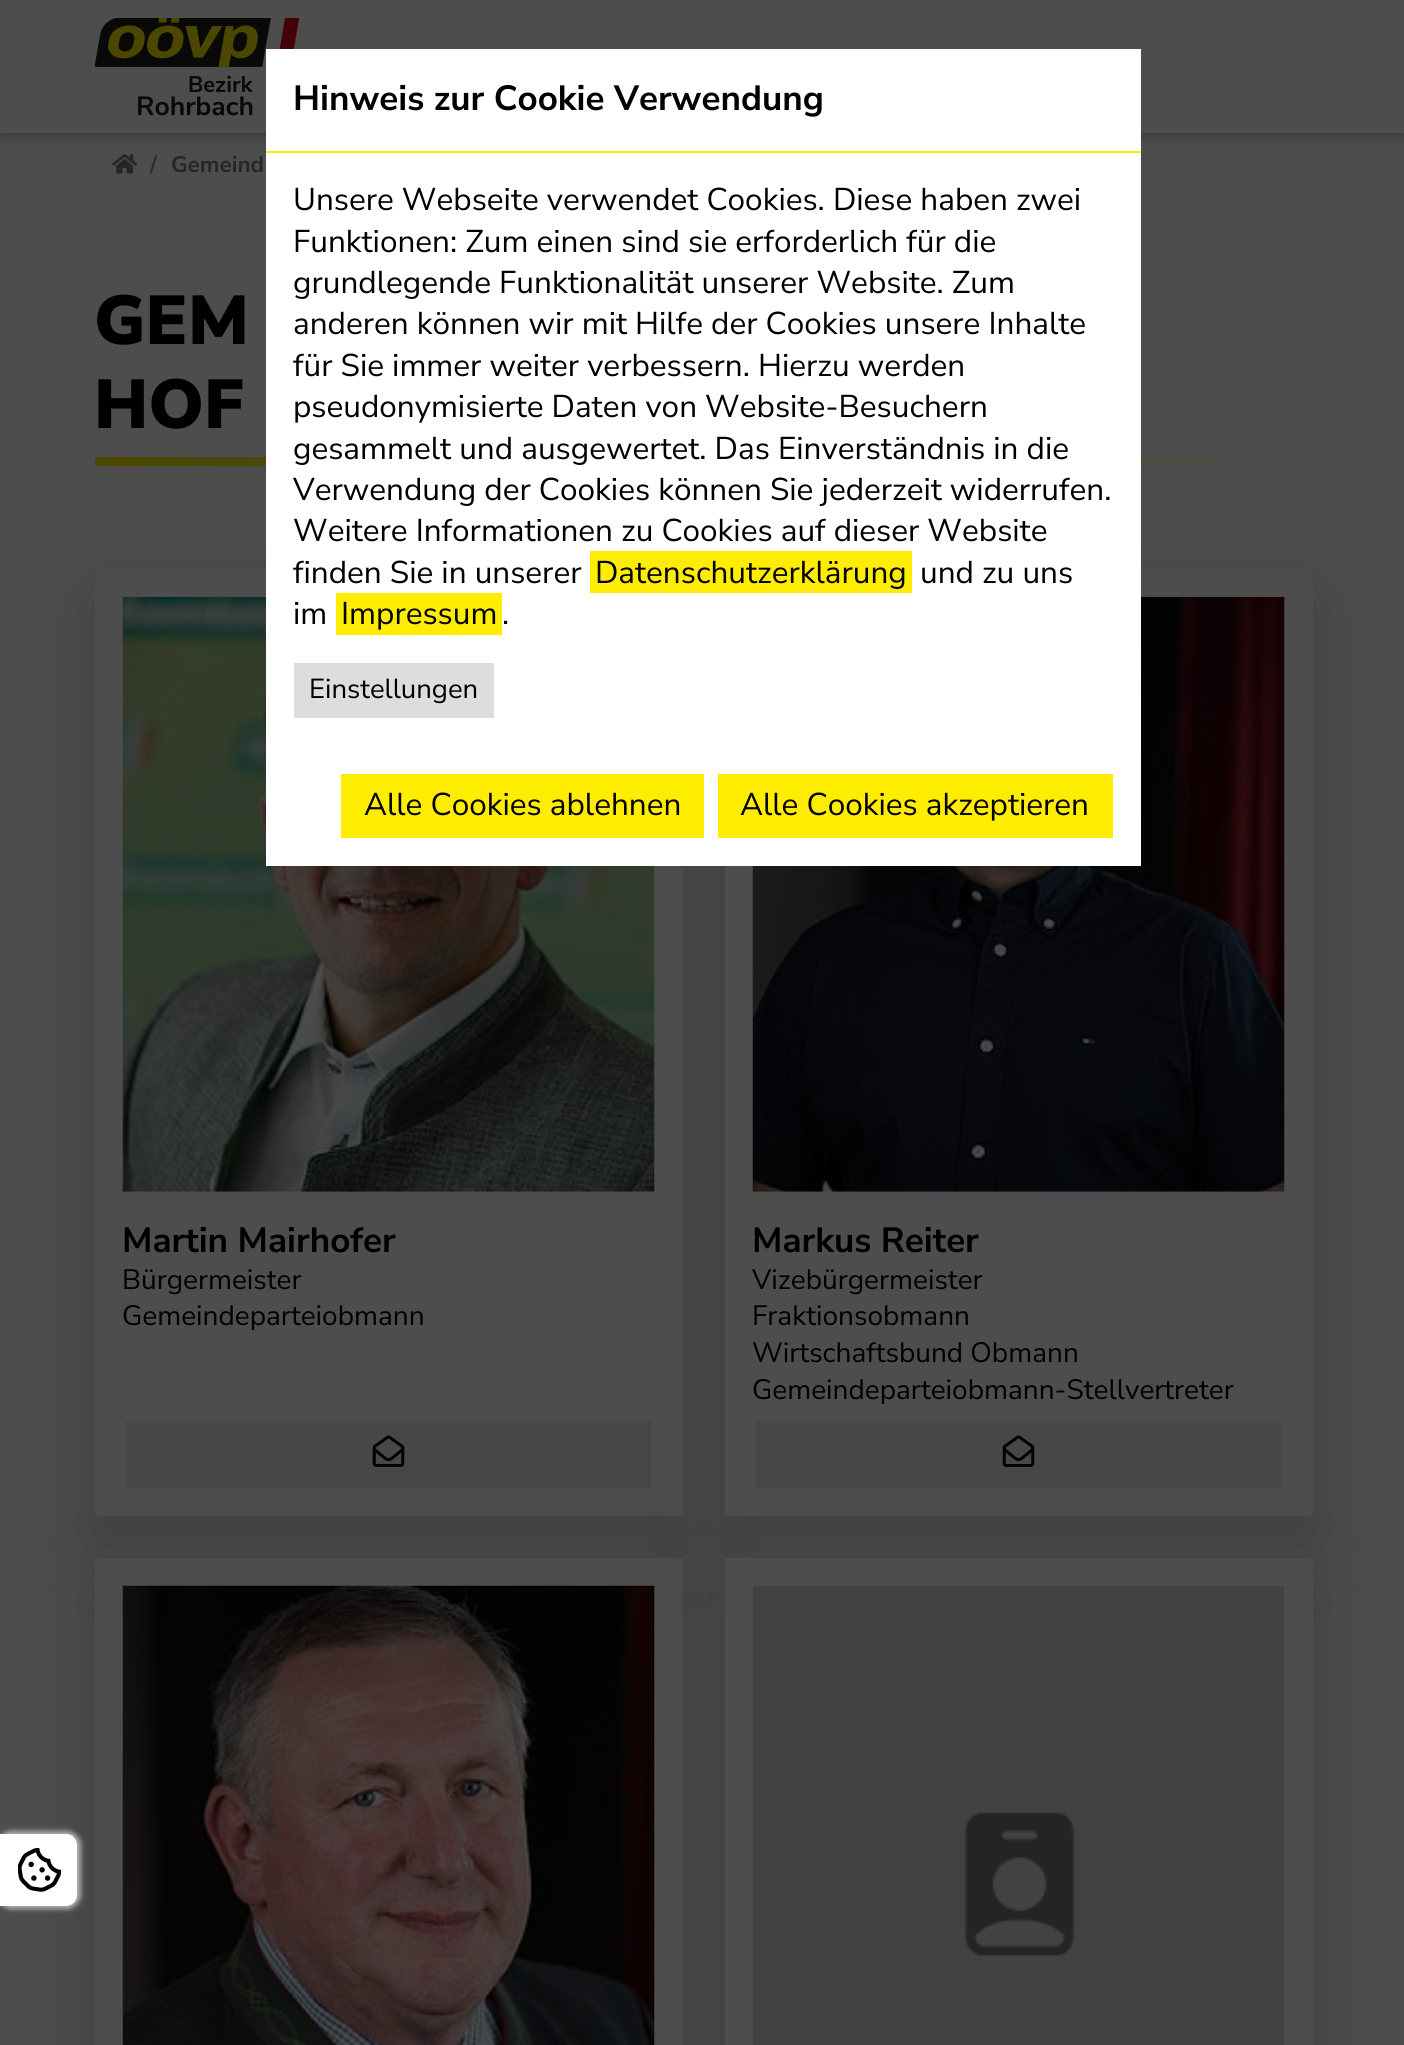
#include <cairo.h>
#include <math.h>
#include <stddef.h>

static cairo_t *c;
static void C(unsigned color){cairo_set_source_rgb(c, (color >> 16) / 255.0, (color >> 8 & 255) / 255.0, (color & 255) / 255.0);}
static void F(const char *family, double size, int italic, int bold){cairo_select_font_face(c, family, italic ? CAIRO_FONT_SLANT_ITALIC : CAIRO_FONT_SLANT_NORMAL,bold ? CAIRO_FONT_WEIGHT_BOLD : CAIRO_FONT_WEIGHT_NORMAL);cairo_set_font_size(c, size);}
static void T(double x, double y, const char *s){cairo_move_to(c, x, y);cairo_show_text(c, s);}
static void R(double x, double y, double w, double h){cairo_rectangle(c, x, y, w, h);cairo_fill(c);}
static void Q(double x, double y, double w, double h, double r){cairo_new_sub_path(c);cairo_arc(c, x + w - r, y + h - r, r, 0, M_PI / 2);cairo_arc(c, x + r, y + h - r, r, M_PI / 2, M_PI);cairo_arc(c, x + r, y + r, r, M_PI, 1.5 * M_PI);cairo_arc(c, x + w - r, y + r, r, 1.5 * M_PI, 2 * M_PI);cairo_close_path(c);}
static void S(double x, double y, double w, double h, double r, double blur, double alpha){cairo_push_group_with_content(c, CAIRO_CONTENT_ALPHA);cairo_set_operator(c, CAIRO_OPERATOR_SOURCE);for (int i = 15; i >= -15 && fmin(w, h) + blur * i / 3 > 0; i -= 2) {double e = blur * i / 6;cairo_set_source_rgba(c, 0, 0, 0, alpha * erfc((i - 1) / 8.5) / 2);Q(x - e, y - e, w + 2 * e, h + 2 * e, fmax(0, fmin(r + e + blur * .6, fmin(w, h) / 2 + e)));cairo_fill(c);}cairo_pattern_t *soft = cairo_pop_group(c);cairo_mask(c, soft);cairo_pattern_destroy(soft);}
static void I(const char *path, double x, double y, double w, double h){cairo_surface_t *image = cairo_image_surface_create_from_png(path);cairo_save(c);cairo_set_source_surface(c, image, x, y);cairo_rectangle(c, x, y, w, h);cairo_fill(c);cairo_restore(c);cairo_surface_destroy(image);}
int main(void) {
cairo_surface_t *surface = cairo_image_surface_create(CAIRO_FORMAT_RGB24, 1404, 2045);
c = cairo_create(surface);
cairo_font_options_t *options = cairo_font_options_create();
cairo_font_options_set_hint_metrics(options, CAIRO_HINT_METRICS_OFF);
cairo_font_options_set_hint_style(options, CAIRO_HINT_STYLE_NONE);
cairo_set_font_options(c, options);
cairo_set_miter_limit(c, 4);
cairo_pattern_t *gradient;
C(0x4d4d4d);
cairo_paint(c);
I("2.png",112,154,26,20);
cairo_save(c);
cairo_rectangle(c,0,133,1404,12);
cairo_clip(c);
C(0x000000);
S(0,4,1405,133,0,6,.25);
cairo_restore(c);
I("1.png",95,18,204,98);
gradient = cairo_pattern_create_linear(593,698,814,224);
cairo_pattern_add_color_stop_rgba(gradient,0,0.302,0.278,0,1);
cairo_pattern_add_color_stop_rgba(gradient,1,0.302,0.302,0.302,1);
cairo_set_source(c,gradient);
cairo_pattern_destroy(gradient);
Q(95,457,1218,9,4);
cairo_fill(c);
C(0x000000);
S(95,597,588,947,0,42,.18);
C(0x4d4d4d);
R(95,569,588,947);
I("3.png",122,596,533,596);
C(0x474747);
R(126,1421,525,67);
C(0x000000);
S(725,597,588,947,0,42,.18);
C(0x4d4d4d);
R(725,569,588,947);
I("5.png",752,596,533,596);
C(0xffffff);
R(266,49,875,817);
C(0xffed00);
R(266,151,875,2);
F("Nunito Sans",35,0,1);
C(0x000000);
T(293,110,"Hinweis zur Cookie Verwendung");
F("Nunito Sans",31.5,0,0);
T(293,210,"Unsere Webseite verwendet Cookies. Diese haben zwei");
T(293,252,"Funktionen: Zum einen sind sie erforderlich für die");
T(293,293,"grundlegende Funktionalität unserer Website. Zum");
T(293,334,"anderen können wir mit Hilfe der Cookies unsere Inhalte");
T(293,376,"für Sie immer weiter verbessern. Hierzu werden");
T(293,417,"pseudonymisierte Daten von Website-Besuchern");
T(293,459,"gesammelt und ausgewertet. Das Einverständnis in die");
T(293,500,"Verwendung der Cookies können Sie jederzeit widerrufen.");
T(293,541,"Weitere Informationen zu Cookies auf dieser Website");
T(293,583,"finden Sie in unserer");
C(0xffed00);
R(590,551,322,42);
C(0x000000);
T(595,583,"Datenschutzerklärung");
T(920,583,"und zu uns");
T(293,624,"im");
C(0xffed00);
R(336,593,166,42);
C(0x000000);
T(341,624,"Impressum");
T(502,624,".");
C(0xdddddd);
R(294,663,200,55);
F("Nunito Sans",27.5,0,0);
C(0x000000);
T(309,698,"Einstellungen");
C(0xffed00);
R(341,774,363,64);
F("Nunito Sans",31.5,0,0);
C(0x000000);
T(364,815,"Alle Cookies ablehnen");
C(0xffed00);
R(718,774,395,64);
C(0x000000);
T(740,815,"Alle Cookies akzeptieren");
F("Nunito Sans",22.5,0,1);
C(0x2c2c2c);
T(150,172,"/");
C(0x262626);
T(171,172,"Gemeind");
F("Nunito Sans Black",69,0,0);
C(0x000000);
T(94,344,"GEM");
T(94,428,"HOF");
F("Nunito Sans",35,0,1);
T(122,1252,"Martin Mairhofer");
F("Nunito Sans",28,0,0);
T(122,1289,"Bürgermeister");
T(122,1325,"Gemeindeparteiobmann");
I("4.png",372,1435,33,32);
F("Nunito Sans",35,0,1);
T(752,1252,"Markus Reiter");
F("Nunito Sans",28,0,0);
T(752,1289,"Vizebürgermeister");
T(752,1325,"Fraktionsobmann");
T(752,1362,"Wirtschaftsbund Obmann");
T(752,1399,"Gemeindeparteiobmann-Stellvertreter");
C(0x474747);
R(756,1421,525,67);
I("4.png",1002,1435,33,32);
C(0x000000);
S(95,1586,588,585,0,42,.18);
C(0x4d4d4d);
R(95,1558,588,487);
I("6.png",122,1585,533,460);
C(0x000000);
S(725,1586,588,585,0,42,.18);
C(0x4d4d4d);
R(725,1558,588,487);
I("7.png",752,1585,533,460);
C(0xcccccc);
S(-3,1831,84,78,14,2.5,.8);
C(0xffffff);
cairo_new_path(c);
cairo_move_to(c,0,1834);
cairo_line_to(c,66,1834);
cairo_curve_to(c,72,1834,77,1839,77,1845);
cairo_line_to(c,77,1895);
cairo_curve_to(c,77,1901,72,1906,66,1906);
cairo_line_to(c,0,1906);
cairo_close_path(c);
cairo_fill(c);
I("8.png",18,1848,43,44);
cairo_surface_write_to_png(surface, "o.png");
cairo_font_options_destroy(options);
cairo_destroy(c);
cairo_surface_destroy(surface);
return 0;
}
